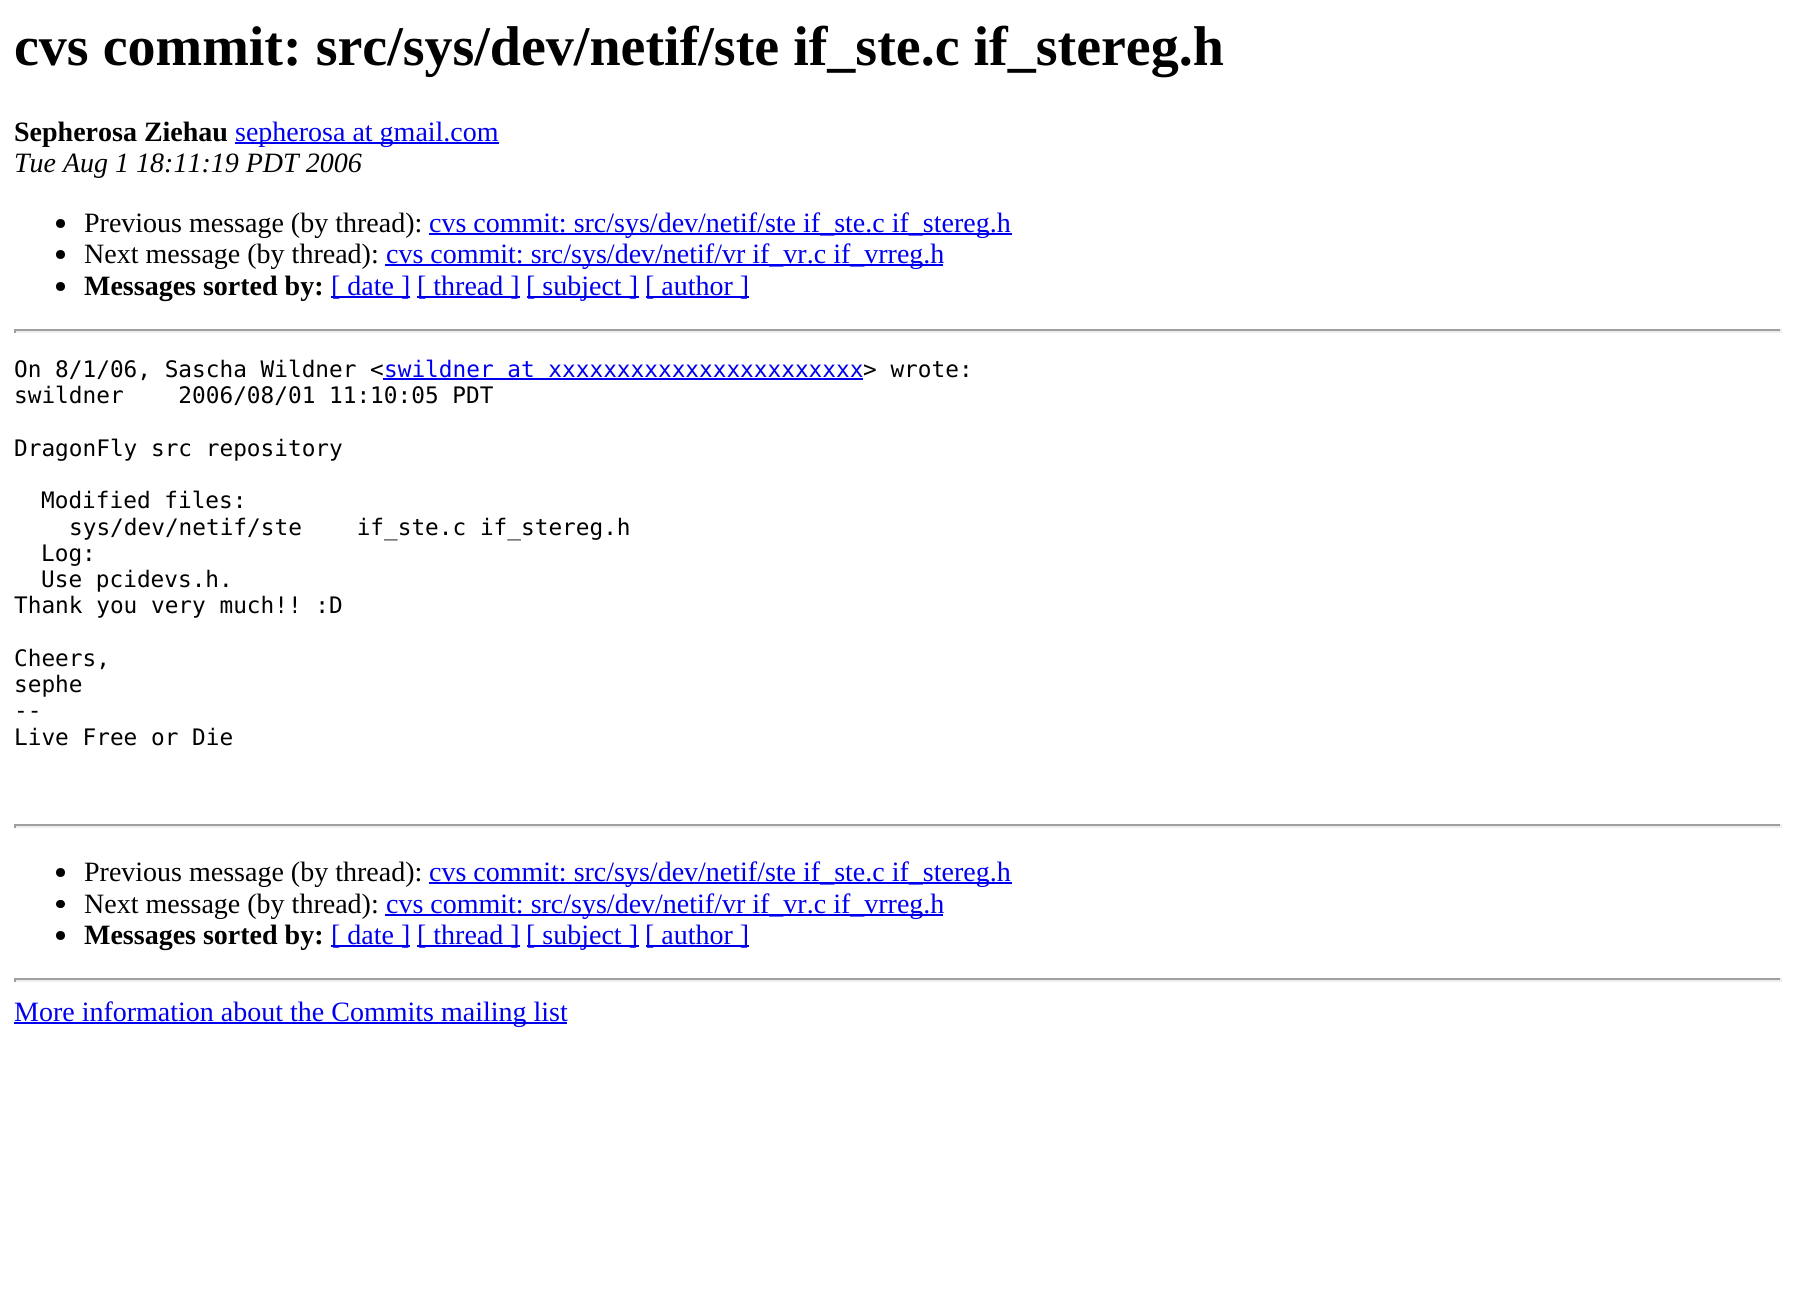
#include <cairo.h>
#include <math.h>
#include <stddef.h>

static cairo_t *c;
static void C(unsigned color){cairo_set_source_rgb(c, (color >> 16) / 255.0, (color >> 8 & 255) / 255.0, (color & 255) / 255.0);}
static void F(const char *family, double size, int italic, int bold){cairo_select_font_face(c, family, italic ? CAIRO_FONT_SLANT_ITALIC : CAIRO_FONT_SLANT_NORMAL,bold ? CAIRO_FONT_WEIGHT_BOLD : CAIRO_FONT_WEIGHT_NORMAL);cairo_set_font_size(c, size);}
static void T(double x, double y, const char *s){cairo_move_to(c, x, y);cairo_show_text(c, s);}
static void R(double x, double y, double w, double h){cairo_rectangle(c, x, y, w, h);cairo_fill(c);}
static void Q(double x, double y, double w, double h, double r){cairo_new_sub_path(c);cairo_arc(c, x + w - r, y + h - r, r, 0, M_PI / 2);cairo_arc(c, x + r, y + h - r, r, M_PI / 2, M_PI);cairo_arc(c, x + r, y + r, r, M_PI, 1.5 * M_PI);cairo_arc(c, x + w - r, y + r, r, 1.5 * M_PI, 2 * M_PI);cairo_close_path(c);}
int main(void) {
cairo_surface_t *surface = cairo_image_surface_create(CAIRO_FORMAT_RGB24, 1794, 1298);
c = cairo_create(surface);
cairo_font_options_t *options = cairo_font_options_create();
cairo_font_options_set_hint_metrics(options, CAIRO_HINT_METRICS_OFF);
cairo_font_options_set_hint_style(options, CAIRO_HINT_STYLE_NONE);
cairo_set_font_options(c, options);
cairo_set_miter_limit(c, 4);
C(0xffffff);
cairo_paint(c);
F("Liberation Serif",56,0,1);
C(0x000000);
T(14,65,"cvs commit: src/sys/dev/netif/ste if_ste.c if_stereg.h");
F("Liberation Serif",28,0,1);
T(14,141,"Sepherosa Ziehau");
C(0x0000ee);
R(235,142,264,2);
F("Liberation Serif",28,0,0);
T(235,141,"sepherosa at gmail.com");
F("Liberation Serif",28,1,0);
C(0x000000);
T(14,172,"Tue Aug 1 18:11:19 PDT 2006");
cairo_new_path(c);
cairo_arc(c,60.5,223.5,4.5,0,2 * M_PI);
cairo_fill(c);
F("Liberation Serif",28,0,0);
T(84,232,"Previous message (by thread):");
C(0x0000ee);
R(429,233,583,2);
T(429,232,"cvs commit: src/sys/dev/netif/ste if_ste.c if_stereg.h");
C(0x000000);
cairo_new_path(c);
cairo_arc(c,60.5,254.5,4.5,0,2 * M_PI);
cairo_fill(c);
T(84,263,"Next message (by thread):");
C(0x0000ee);
R(385,264,558,2);
T(386,263,"cvs commit: src/sys/dev/netif/vr if_vr.c if_vrreg.h");
C(0x000000);
cairo_new_path(c);
cairo_arc(c,60.5,286.5,4.5,0,2 * M_PI);
cairo_fill(c);
F("Liberation Serif",28,0,1);
T(84,295,"Messages sorted by:");
C(0x0000ee);
R(331,296,79,2);
F("Liberation Serif",28,0,0);
T(331,295,"[ date ]");
R(417,296,103,2);
T(417,295,"[ thread ]");
R(527,296,112,2);
T(526,295,"[ subject ]");
R(646,296,103,2);
T(645,295,"[ author ]");
C(0x9f9f9f);
R(14,329,1768,2);
C(0xeeeeee);
R(1780,329,2,4);
R(14,331,1768,2);
C(0x9f9f9f);
R(14,329,2,4);
F("DejaVu Sans Mono",22.75,0,0);
C(0x000000);
T(14,377,"On 8/1/06, Sascha Wildner <");
C(0x0000ee);
T(384,377,"swildner at xxxxxxxxxxxxxxxxxxxxxxx");
R(383,378,480,2);
C(0x000000);
T(863,377,"> wrote:");
T(14,403,"swildner    2006/08/01 11:10:05 PDT");
T(14,456,"DragonFly src repository");
T(41,508,"Modified files:");
T(69,535,"sys/dev/netif/ste    if_ste.c if_stereg.h");
T(41,561,"Log:");
T(41,587,"Use pcidevs.h.");
T(14,613,"Thank you very much!! :D");
T(14,666,"Cheers,");
T(14,692,"sephe");
T(14,718,"--");
T(14,745,"Live Free or Die");
C(0x9f9f9f);
R(14,824,1768,2);
C(0xeeeeee);
R(1780,824,2,4);
R(14,826,1768,2);
C(0x9f9f9f);
R(14,824,2,4);
C(0x000000);
cairo_new_path(c);
cairo_arc(c,60.5,872.5,4.5,0,2 * M_PI);
cairo_fill(c);
F("Liberation Serif",28,0,0);
T(84,881,"Previous message (by thread):");
C(0x0000ee);
R(429,882,583,2);
T(429,881,"cvs commit: src/sys/dev/netif/ste if_ste.c if_stereg.h");
C(0x000000);
Q(56,900,9,8,4);
cairo_fill(c);
T(84,913,"Next message (by thread):");
C(0x0000ee);
R(385,914,558,2);
T(386,913,"cvs commit: src/sys/dev/netif/vr if_vr.c if_vrreg.h");
C(0x000000);
cairo_new_path(c);
cairo_arc(c,60.5,935.5,4.5,0,2 * M_PI);
cairo_fill(c);
F("Liberation Serif",28,0,1);
T(84,944,"Messages sorted by:");
C(0x0000ee);
R(331,945,79,2);
F("Liberation Serif",28,0,0);
T(331,944,"[ date ]");
R(417,945,103,2);
T(417,944,"[ thread ]");
R(527,945,112,2);
T(526,944,"[ subject ]");
R(646,945,103,2);
T(645,944,"[ author ]");
C(0x9f9f9f);
R(14,978,1768,2);
C(0xeeeeee);
R(1780,978,2,4);
R(14,980,1768,2);
C(0x9f9f9f);
R(14,978,2,4);
C(0x0000ee);
R(14,1022,553,2);
T(14,1021,"More information about the Commits mailing list");
cairo_surface_write_to_png(surface, "o.png");
cairo_font_options_destroy(options);
cairo_destroy(c);
cairo_surface_destroy(surface);
return 0;
}
